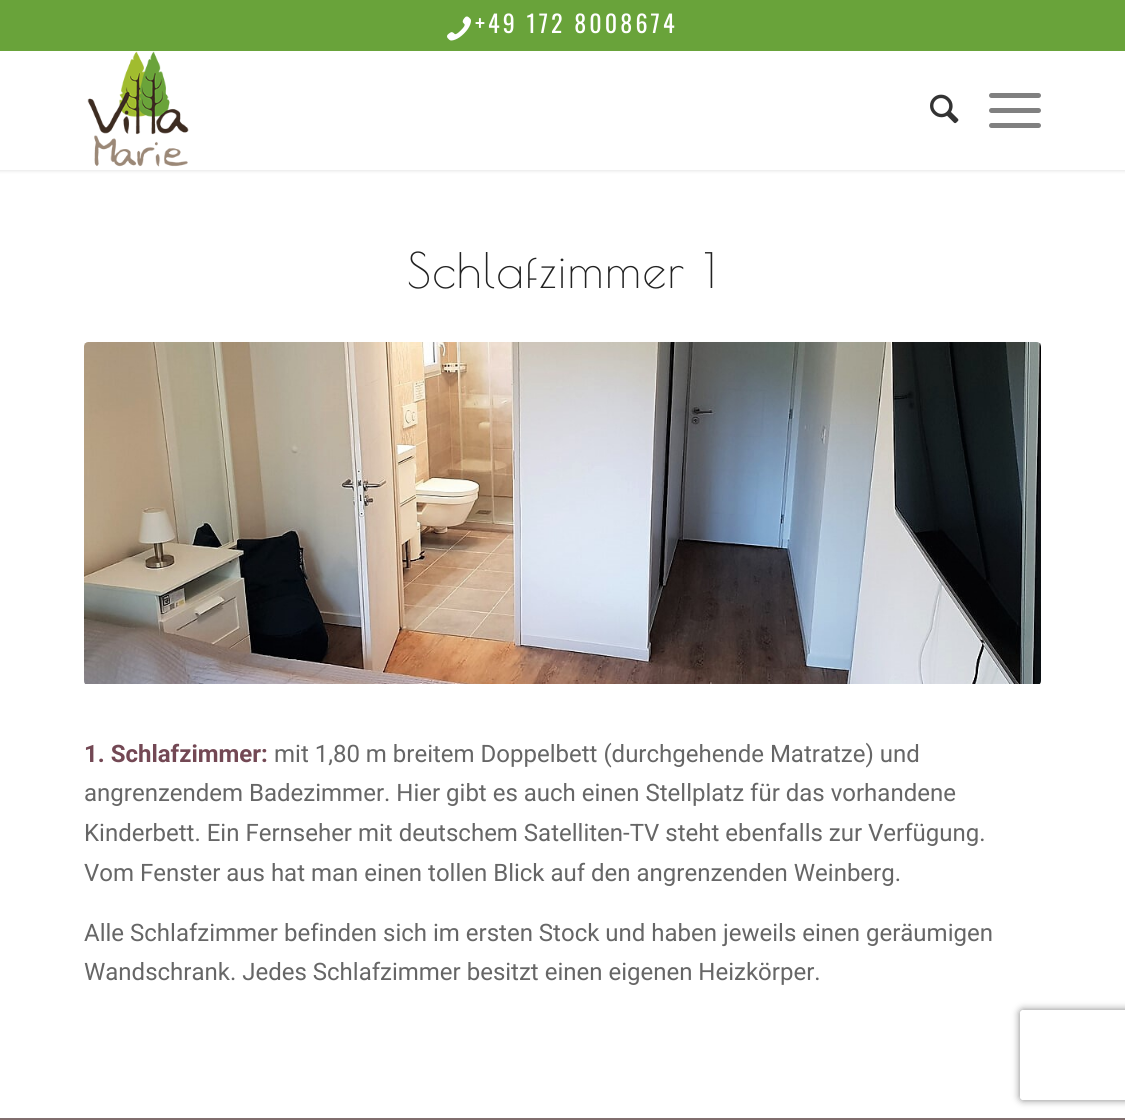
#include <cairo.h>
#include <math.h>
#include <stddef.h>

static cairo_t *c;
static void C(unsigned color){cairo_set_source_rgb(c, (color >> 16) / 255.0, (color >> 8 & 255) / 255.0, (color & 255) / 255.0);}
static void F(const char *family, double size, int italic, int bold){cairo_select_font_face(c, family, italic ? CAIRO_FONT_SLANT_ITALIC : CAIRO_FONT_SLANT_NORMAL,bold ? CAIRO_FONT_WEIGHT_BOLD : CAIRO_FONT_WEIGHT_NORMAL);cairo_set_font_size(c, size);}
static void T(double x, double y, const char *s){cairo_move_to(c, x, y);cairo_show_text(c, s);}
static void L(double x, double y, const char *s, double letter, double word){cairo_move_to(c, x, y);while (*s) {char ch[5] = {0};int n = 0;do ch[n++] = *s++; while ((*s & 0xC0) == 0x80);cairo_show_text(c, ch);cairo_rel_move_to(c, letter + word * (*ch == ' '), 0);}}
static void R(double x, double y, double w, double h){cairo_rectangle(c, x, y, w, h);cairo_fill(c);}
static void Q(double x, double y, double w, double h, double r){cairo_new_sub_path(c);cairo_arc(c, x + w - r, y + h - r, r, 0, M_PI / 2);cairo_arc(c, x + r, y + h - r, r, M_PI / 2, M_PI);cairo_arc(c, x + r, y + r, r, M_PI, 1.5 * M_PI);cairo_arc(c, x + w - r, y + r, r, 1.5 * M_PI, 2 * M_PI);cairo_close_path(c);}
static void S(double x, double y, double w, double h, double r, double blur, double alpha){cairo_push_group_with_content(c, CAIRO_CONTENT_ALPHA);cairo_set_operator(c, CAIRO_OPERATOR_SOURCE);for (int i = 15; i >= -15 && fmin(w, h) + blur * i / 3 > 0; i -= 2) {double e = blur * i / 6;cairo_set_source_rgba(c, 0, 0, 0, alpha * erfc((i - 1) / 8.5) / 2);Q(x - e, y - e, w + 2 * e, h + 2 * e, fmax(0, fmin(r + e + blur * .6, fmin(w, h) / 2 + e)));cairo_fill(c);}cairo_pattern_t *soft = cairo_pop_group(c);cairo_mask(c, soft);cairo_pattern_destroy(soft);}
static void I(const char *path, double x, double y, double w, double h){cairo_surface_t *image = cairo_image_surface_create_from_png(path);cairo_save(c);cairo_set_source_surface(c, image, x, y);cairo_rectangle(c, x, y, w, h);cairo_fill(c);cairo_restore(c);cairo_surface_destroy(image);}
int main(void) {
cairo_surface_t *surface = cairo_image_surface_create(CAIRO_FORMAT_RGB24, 1125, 1120);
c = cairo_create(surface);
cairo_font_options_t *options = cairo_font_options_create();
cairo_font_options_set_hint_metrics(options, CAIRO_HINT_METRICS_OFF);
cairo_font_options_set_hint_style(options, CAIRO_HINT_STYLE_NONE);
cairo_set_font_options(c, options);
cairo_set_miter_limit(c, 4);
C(0xffffff);
cairo_paint(c);
C(0x000000);
S(-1,-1,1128,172,0,1.5,.1);
C(0x69a33a);
R(0,0,1125,51);
I("1.png",447,16,24,25);
F("Oswald",24,0,0);
C(0xffffff);
L(475,33,"+49 172 8008674",3.1,0);
R(0,51,1125,119);
I("2.png",87,51,102,116);
I("3.png",930,94,29,30);
C(0x808080);
Q(989,108,52,5,2.5);
cairo_fill(c);
Q(989,93,52,5,2.5);
cairo_fill(c);
Q(989,123,52,5,2.5);
cairo_fill(c);
F("Poiret One",48,0,0);
C(0x222222);
L(407,288,"Schlafzimmer 1",1.5,0);
I("4.png",84,342,957,342);
F("Roboto",24,0,1);
C(0x734854);
T(84,762,"1. Schlafzimmer:");
F("Roboto",24,0,0);
C(0x666666);
T(274,762,"mit 1,80 m breitem Doppelbett (durchgehende Matratze) und");
T(84,801,"angrenzendem Badezimmer. Hier gibt es auch einen Stellplatz für das vorhandene");
T(84,841,"Kinderbett. Ein Fernseher mit deutschem Satelliten-TV steht ebenfalls zur Verfügung.");
T(84,881,"Vom Fenster aus hat man einen tollen Blick auf den angrenzenden Weinberg.");
T(84,941,"Alle Schlafzimmer befinden sich im ersten Stock und haben jeweils einen geräumigen");
T(84,980,"Wandschrank. Jedes Schlafzimmer besitzt einen eigenen Heizkörper.");
C(0x806e6e);
R(0,1118,1125,2);
cairo_save(c);
cairo_set_fill_rule(c,CAIRO_FILL_RULE_EVEN_ODD);
cairo_new_path(c);
cairo_move_to(c,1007,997);
cairo_line_to(c,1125,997);
cairo_line_to(c,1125,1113);
cairo_line_to(c,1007,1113);
cairo_close_path(c);
cairo_move_to(c,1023,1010);
cairo_line_to(c,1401,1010);
cairo_curve_to(c,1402.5,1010,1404,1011.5,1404,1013);
cairo_line_to(c,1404,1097);
cairo_curve_to(c,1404,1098.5,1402.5,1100,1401,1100);
cairo_line_to(c,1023,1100);
cairo_curve_to(c,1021.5,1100,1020,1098.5,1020,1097);
cairo_line_to(c,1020,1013);
cairo_curve_to(c,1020,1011.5,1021.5,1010,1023,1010);
cairo_close_path(c);
cairo_clip(c);
C(0x808080);
S(1020,1010,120,90,3,4,1);
cairo_restore(c);
cairo_surface_write_to_png(surface, "o.png");
cairo_font_options_destroy(options);
cairo_destroy(c);
cairo_surface_destroy(surface);
return 0;
}
